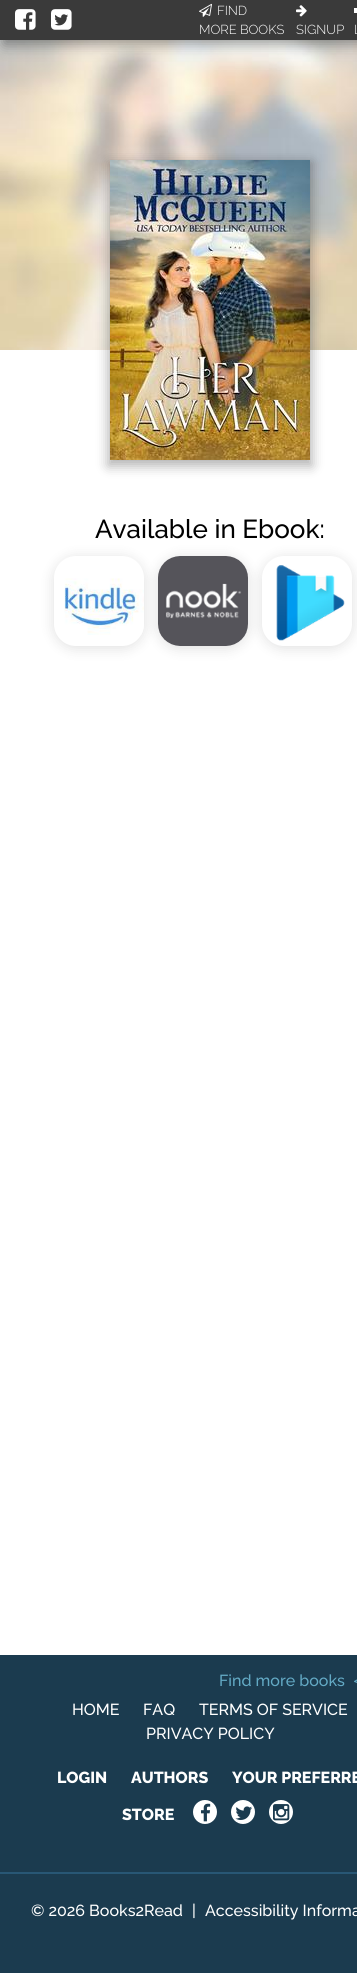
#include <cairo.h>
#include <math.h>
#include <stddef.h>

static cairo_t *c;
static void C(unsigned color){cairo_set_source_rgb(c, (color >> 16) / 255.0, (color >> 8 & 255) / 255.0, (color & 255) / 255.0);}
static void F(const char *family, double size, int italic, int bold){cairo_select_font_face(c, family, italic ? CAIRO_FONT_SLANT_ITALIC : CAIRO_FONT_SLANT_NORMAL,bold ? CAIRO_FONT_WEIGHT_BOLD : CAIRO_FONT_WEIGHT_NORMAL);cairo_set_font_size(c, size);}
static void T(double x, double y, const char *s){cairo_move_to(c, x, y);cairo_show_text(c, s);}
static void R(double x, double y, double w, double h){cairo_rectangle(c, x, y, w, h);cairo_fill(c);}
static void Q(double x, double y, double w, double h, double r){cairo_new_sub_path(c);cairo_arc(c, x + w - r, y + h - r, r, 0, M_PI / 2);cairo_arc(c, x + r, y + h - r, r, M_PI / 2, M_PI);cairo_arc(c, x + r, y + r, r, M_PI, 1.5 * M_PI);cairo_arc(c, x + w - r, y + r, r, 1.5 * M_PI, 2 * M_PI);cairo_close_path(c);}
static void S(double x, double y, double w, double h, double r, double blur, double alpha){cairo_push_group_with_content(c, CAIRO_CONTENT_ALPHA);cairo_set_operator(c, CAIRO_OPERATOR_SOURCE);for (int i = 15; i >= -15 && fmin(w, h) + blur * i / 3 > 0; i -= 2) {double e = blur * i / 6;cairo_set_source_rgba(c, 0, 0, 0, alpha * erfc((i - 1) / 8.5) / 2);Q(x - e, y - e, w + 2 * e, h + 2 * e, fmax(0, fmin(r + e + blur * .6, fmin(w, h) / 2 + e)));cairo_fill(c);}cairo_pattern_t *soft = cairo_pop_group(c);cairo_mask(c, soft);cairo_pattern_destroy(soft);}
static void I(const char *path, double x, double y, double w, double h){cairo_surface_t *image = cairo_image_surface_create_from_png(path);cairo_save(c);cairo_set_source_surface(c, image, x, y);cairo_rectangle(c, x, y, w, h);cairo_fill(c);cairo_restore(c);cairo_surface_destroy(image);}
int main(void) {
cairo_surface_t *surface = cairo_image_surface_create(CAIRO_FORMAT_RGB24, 357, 1973);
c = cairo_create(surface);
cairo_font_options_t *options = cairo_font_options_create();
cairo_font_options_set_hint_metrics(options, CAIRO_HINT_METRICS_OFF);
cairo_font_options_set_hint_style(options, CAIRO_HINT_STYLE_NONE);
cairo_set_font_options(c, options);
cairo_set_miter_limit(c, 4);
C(0xffffff);
cairo_paint(c);
I("1.png",0,40,357,310);
C(0x000000);
S(4,4,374,40,0,7,.4);
C(0x3a3a3a);
R(0,0,357,40);
I("2.png",15,9,21,21);
I("3.png",51,9,21,21);
I("4.png",199,3,13,14);
F("Raleway Light",13,0,0);
C(0xffffff);
T(217,15,"FIND");
T(199,34,"MORE BOOKS");
I("5.png",296,5,11,12);
T(296,34,"SIGNUP");
R(354,8,3,5);
T(354,34,"L");
C(0x000000);
S(108,162,204,304,0,6,.3);
I("6.png",110,160,200,300);
F("Raleway Medium",26,0,0);
C(0x000000);
T(95,538,"Available in Ebook:");
C(0x000000);
S(52,556,94,94,24,6,.1);
C(0xffffff);
Q(54,556,90,90,22);
cairo_fill(c);
I("8.png",64,578,80,57);
C(0x000000);
S(156,556,94,94,24,6,.1);
C(0xffffff);
Q(158,556,90,90,22);
cairo_fill(c);
I("7.png",158,556,90,90);
C(0x000000);
S(260,556,94,94,24,6,.1);
C(0xffffff);
Q(262,556,90,90,22);
cairo_fill(c);
I("9.png",276,565,69,76);
C(0x1b3b4f);
R(0,1655,357,318);
F("Raleway Medium",16,0,0);
C(0x63aac5);
T(219,1686,"Find more books");
I("10.png",354,1679,3,4);
C(0xffffff);
T(72,1715,"HOME");
T(143,1715,"FAQ");
T(199,1715,"TERMS OF SERVICE");
T(146,1739,"PRIVACY POLICY");
F("Raleway ExtraBold",16,0,0);
T(57,1783,"LOGIN");
T(131,1783,"AUTHORS");
T(232,1783,"YOUR PREFERRE");
T(122,1820,"STORE");
cairo_new_path(c);
cairo_arc(c,205,1812,12,0,2 * M_PI);
cairo_fill(c);
I("11.png",201,1803,10,19);
cairo_arc(c,243,1812,12,0,2 * M_PI);
cairo_fill(c);
I("12.png",235,1806,17,14);
cairo_arc(c,281,1812,12,0,2 * M_PI);
cairo_fill(c);
I("13.png",273,1804,17,17);
C(0x285775);
R(0,1872,357,2);
F("Raleway Medium",16,0,0);
C(0xffffff);
T(31,1916,"© 2026 Books2Read");
T(192,1916,"|");
T(205,1916,"Accessibility Informa");
cairo_surface_write_to_png(surface, "o.png");
cairo_font_options_destroy(options);
cairo_destroy(c);
cairo_surface_destroy(surface);
return 0;
}
